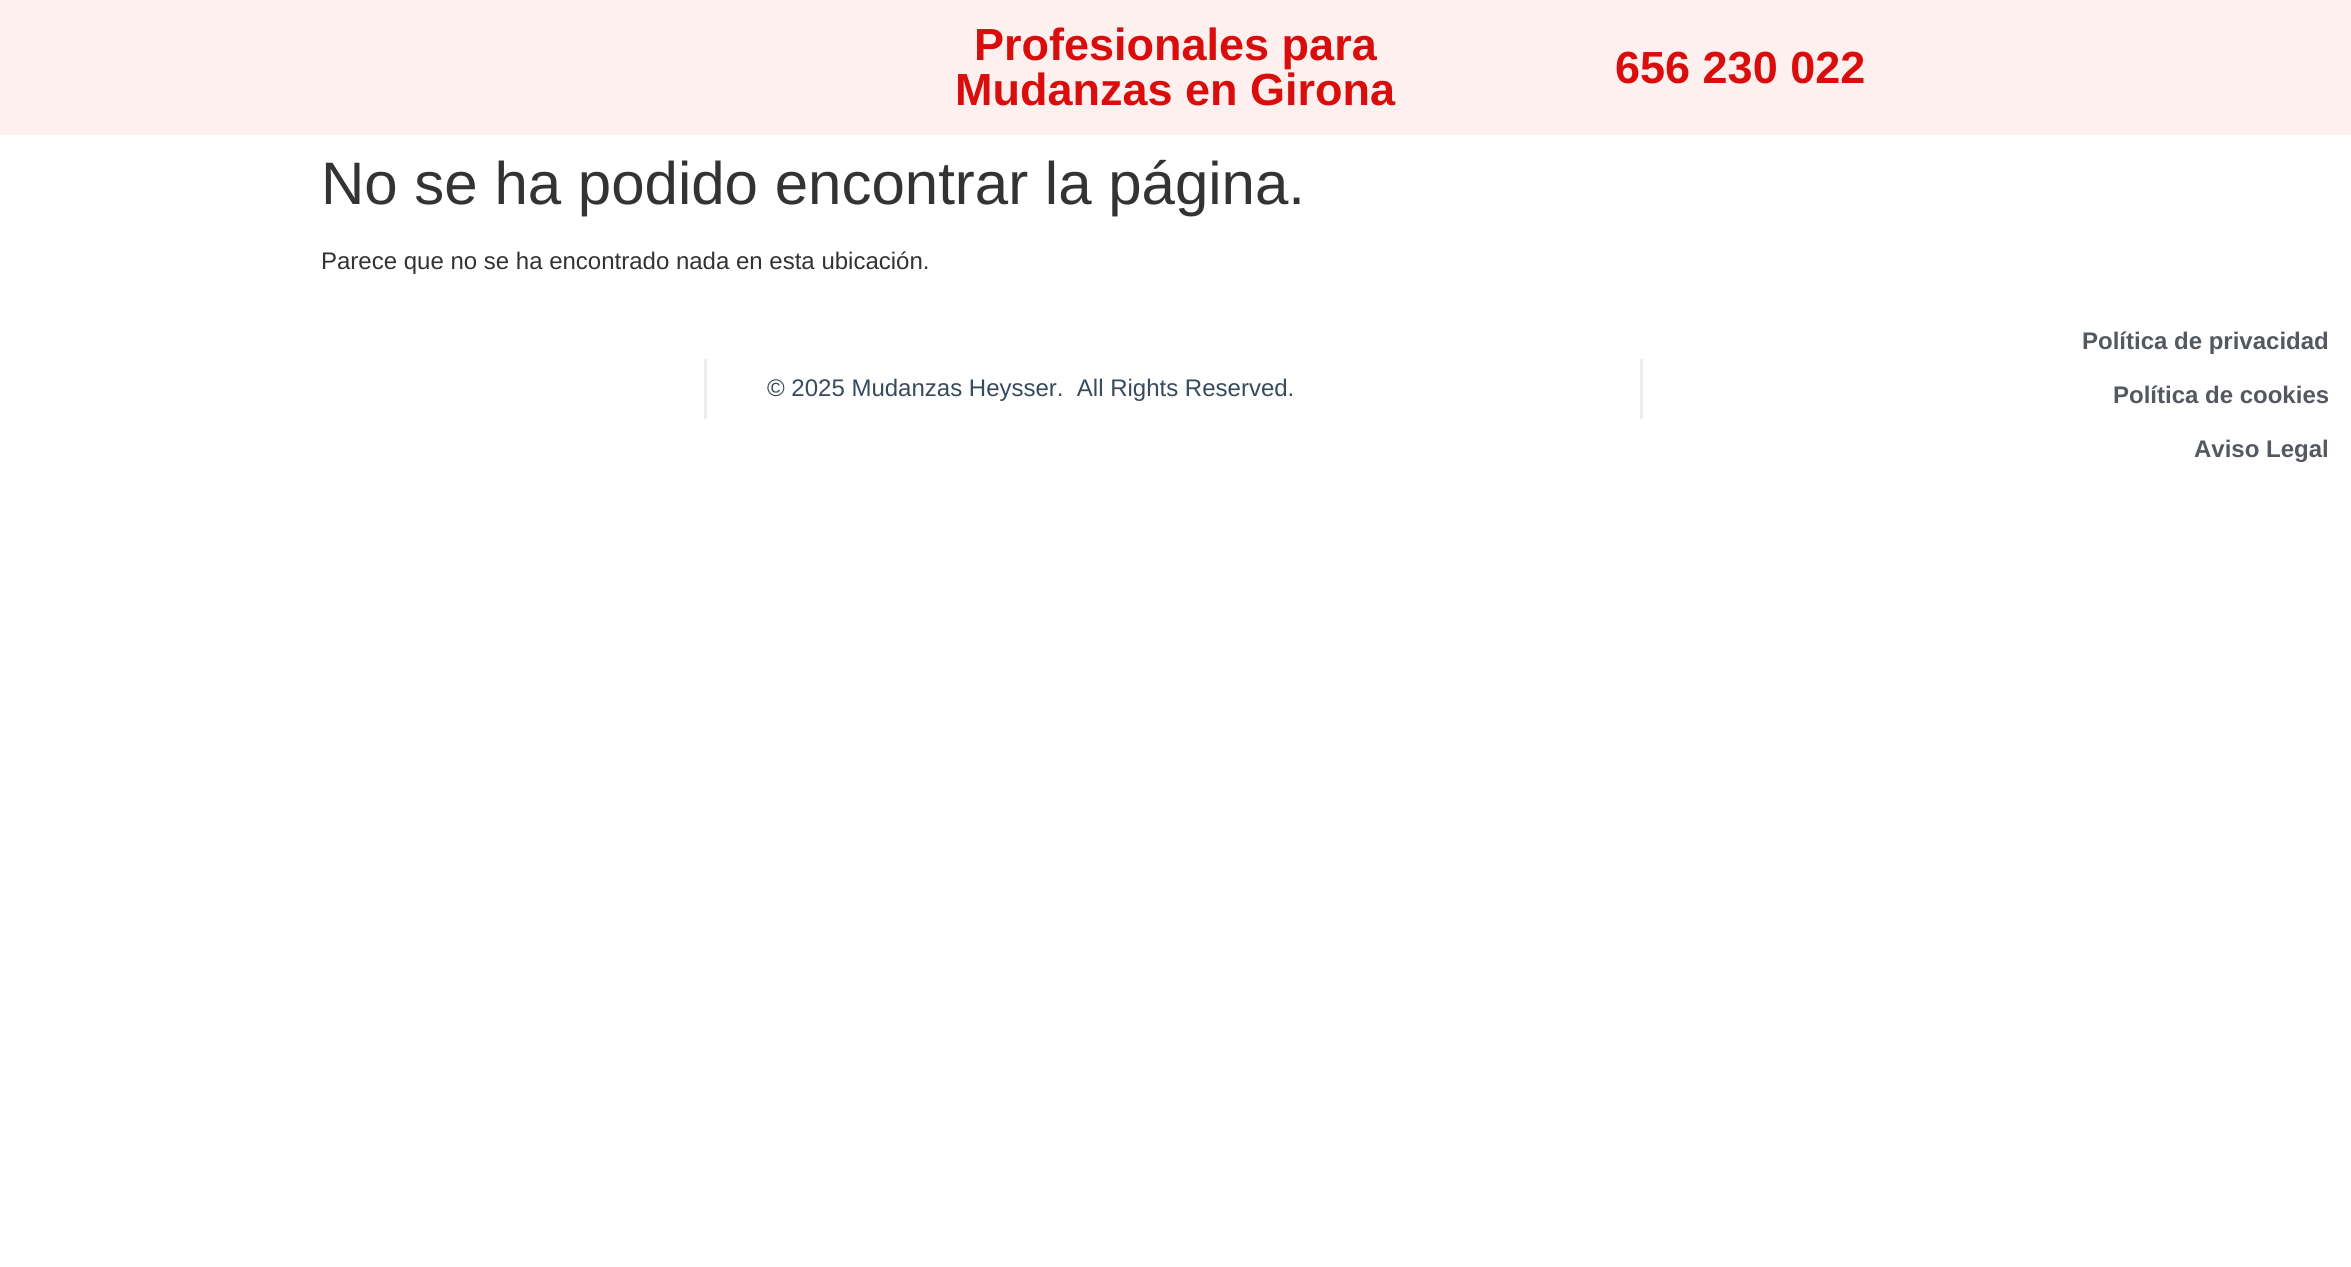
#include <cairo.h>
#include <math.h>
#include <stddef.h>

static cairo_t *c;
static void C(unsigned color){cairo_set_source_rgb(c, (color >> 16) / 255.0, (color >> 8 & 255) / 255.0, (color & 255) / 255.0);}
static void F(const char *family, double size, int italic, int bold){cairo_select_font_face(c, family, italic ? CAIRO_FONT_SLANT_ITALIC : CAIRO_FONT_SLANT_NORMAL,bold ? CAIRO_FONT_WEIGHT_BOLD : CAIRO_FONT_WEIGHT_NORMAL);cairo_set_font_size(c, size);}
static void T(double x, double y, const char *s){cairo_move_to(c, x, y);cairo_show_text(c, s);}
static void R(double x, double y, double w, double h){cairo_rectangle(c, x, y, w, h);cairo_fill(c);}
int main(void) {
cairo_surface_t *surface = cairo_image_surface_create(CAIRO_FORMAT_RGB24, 2351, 1267);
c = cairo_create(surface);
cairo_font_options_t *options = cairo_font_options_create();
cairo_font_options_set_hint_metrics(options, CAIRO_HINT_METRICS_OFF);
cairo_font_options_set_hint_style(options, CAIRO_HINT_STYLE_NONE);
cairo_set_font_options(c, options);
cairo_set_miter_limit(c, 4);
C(0xffffff);
cairo_paint(c);
C(0xfff0f0);
R(0,0,2351,135);
F("Liberation Sans",45,0,1);
C(0xda0d0d);
T(974,60,"Profesionales para");
T(955,105,"Mudanzas en Girona");
T(1615,83,"656 230 022");
F("Liberation Sans",60,0,0);
C(0x333333);
T(321,204,"No se ha podido encontrar la página.");
F("Liberation Sans",24,0,0);
T(321,269,"Parece que no se ha encontrado nada en esta ubicación.");
C(0xebedef);
R(1640,359,3,60);
R(704,359,3,60);
C(0x374a5e);
T(767,396,"© 2025 Mudanzas Heysser.  All Rights Reserved.");
F("Liberation Sans",24,0,1);
C(0x54595f);
T(2082,349,"Política de privacidad");
T(2113,403,"Política de cookies");
T(2194,457,"Aviso Legal");
cairo_surface_write_to_png(surface, "o.png");
cairo_font_options_destroy(options);
cairo_destroy(c);
cairo_surface_destroy(surface);
return 0;
}
